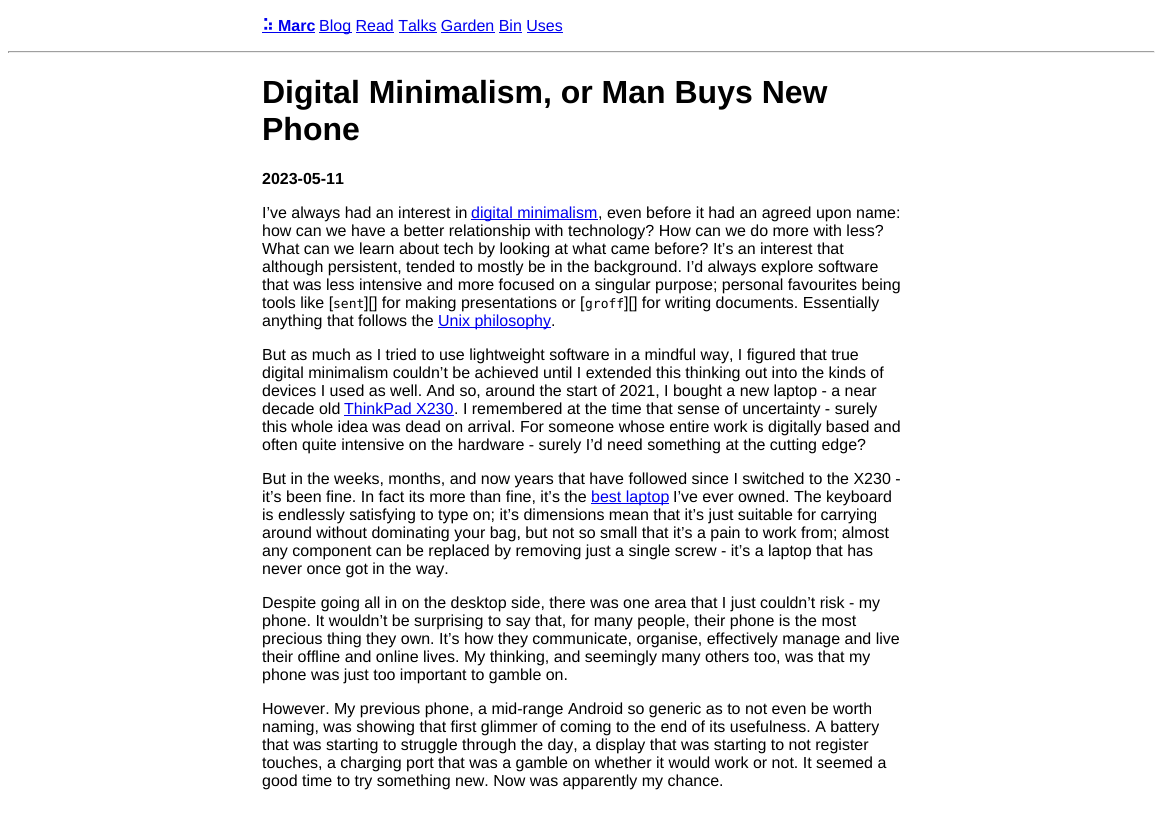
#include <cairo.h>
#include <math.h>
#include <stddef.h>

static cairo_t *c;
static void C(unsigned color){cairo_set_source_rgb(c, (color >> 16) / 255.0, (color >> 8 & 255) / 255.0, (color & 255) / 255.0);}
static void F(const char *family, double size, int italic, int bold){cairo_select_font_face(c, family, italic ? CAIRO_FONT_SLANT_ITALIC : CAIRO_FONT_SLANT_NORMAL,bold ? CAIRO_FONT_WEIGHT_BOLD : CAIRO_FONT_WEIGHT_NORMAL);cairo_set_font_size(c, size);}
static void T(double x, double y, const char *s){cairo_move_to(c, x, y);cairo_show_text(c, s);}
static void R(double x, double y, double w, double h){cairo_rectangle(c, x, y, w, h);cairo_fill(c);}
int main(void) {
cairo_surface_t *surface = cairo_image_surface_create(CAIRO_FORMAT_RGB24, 1163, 814);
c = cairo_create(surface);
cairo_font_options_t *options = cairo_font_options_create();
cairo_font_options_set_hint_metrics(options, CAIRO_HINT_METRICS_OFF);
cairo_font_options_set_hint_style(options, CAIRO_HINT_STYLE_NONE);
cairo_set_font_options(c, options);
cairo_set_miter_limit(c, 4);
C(0xffffff);
cairo_paint(c);
F("DejaVu Sans",16,0,1);
C(0x0000ee);
T(262,31,"⠵");
F("Liberation Sans",16,0,1);
T(278,31,"Marc");
R(262,32,53,1);
R(319,32,33,1);
F("Liberation Sans",16,0,0);
T(319,31,"Blog Read Talks Garden Bin Uses");
R(356,32,38,1);
R(399,32,38,1);
R(441,32,54,1);
R(499,32,23,1);
R(527,32,36,1);
C(0x9f9f9f);
R(8,51,1147,1);
C(0xeeeeee);
R(1154,51,1,2);
R(8,52,1147,1);
C(0x9f9f9f);
R(8,51,1,2);
F("Liberation Sans",32,0,1);
C(0x000000);
T(262,103,"Digital Minimalism, or Man Buys New");
T(262,140,"Phone");
F("Liberation Sans",16,0,1);
T(262,184,"2023-05-11");
F("Liberation Sans",16,0,0);
T(262,218,"I’ve always had an interest in");
C(0x0000ee);
R(471,219,127,1);
T(471,218,"digital minimalism");
C(0x000000);
T(598,218,", even before it had an agreed upon name:");
T(262,236,"how can we have a better relationship with technology? How can we do more with less?");
T(262,254,"What can we learn about tech by looking at what came before? It’s an interest that");
T(262,272,"although persistent, tended to mostly be in the background. I’d always explore software");
T(262,290,"that was less intensive and more focused on a singular purpose; personal favourites being");
T(262,308,"tools like [");
F("DejaVu Sans Mono",13,0,0);
T(333,308,"sent");
F("Liberation Sans",16,0,0);
T(364,308,"][] for making presentations or [");
F("DejaVu Sans Mono",13,0,0);
T(585,308,"groff");
F("Liberation Sans",16,0,0);
T(624,308,"][] for writing documents. Essentially");
T(262,326,"anything that follows the");
C(0x0000ee);
R(438,327,113,1);
T(438,326,"Unix philosophy");
C(0x000000);
T(551,326,".");
T(262,360,"But as much as I tried to use lightweight software in a mindful way, I figured that true");
T(262,378,"digital minimalism couldn’t be achieved until I extended this thinking out into the kinds of");
T(262,396,"devices I used as well. And so, around the start of 2021, I bought a new laptop - a near");
T(262,414,"decade old");
C(0x0000ee);
T(344,414,"ThinkPad X230");
R(344,415,110,1);
C(0x000000);
T(454,414,". I remembered at the time that sense of uncertainty - surely");
T(262,432,"this whole idea was dead on arrival. For someone whose entire work is digitally based and");
T(262,450,"often quite intensive on the hardware - surely I’d need something at the cutting edge?");
T(262,484,"But in the weeks, months, and now years that have followed since I switched to the X230 -");
T(262,502,"it’s been fine. In fact its more than fine, it’s the");
C(0x0000ee);
R(591,503,78,1);
T(591,502,"best laptop");
C(0x000000);
T(673,502,"I’ve ever owned. The keyboard");
T(262,520,"is endlessly satisfying to type on; it’s dimensions mean that it’s just suitable for carrying");
T(262,538,"around without dominating your bag, but not so small that it’s a pain to work from; almost");
T(262,556,"any component can be replaced by removing just a single screw - it’s a laptop that has");
T(262,574,"never once got in the way.");
T(262,608,"Despite going all in on the desktop side, there was one area that I just couldn’t risk - my");
T(262,626,"phone. It wouldn’t be surprising to say that, for many people, their phone is the most");
T(262,644,"precious thing they own. It’s how they communicate, organise, effectively manage and live");
T(262,662,"their offline and online lives. My thinking, and seemingly many others too, was that my");
T(262,680,"phone was just too important to gamble on.");
T(262,714,"However. My previous phone, a mid-range Android so generic as to not even be worth");
T(262,732,"naming, was showing that first glimmer of coming to the end of its usefulness. A battery");
T(262,750,"that was starting to struggle through the day, a display that was starting to not register");
T(262,768,"touches, a charging port that was a gamble on whether it would work or not. It seemed a");
T(262,786,"good time to try something new. Now was apparently my chance.");
cairo_surface_write_to_png(surface, "o.png");
cairo_font_options_destroy(options);
cairo_destroy(c);
cairo_surface_destroy(surface);
return 0;
}
